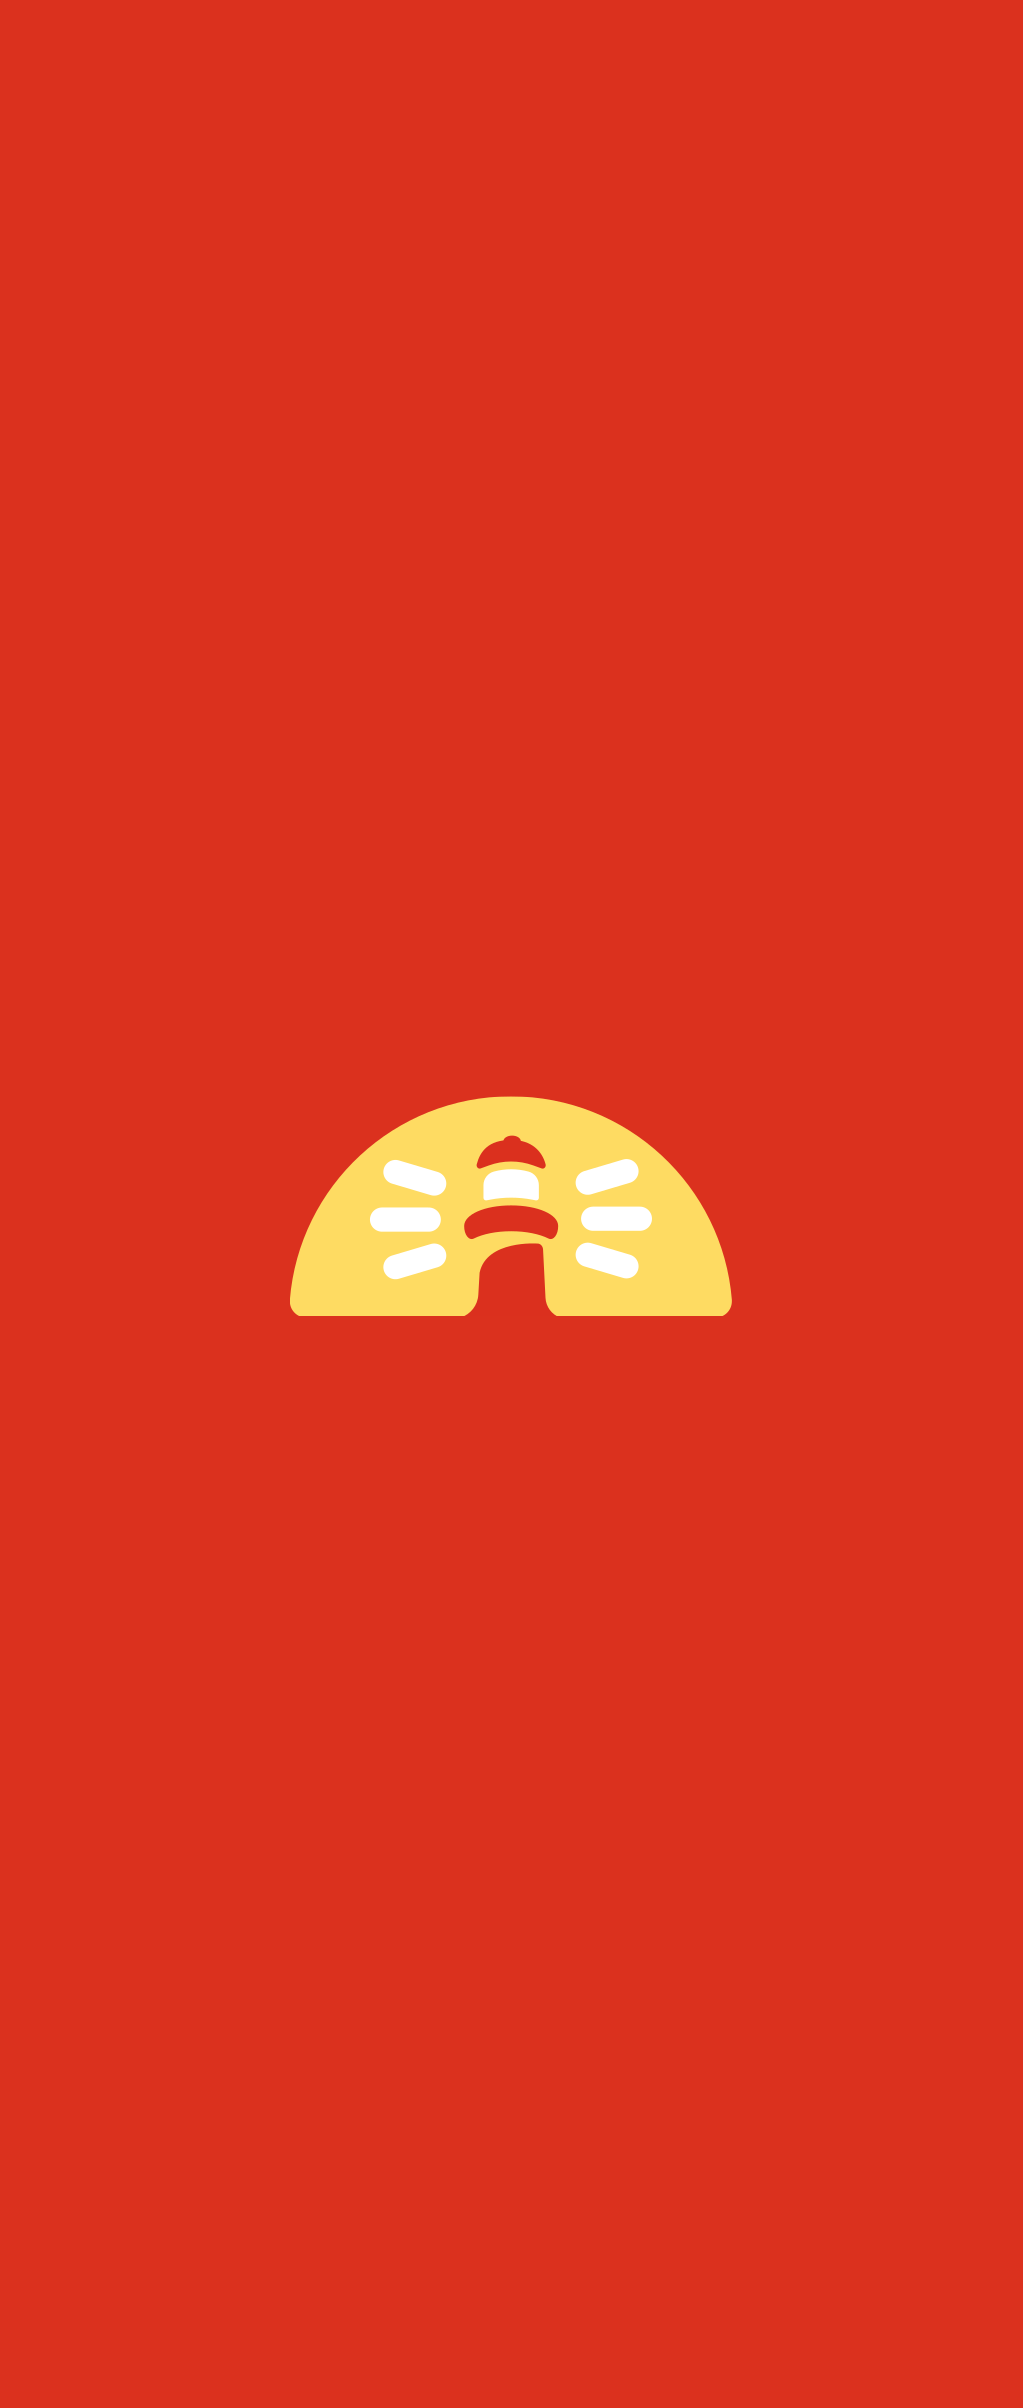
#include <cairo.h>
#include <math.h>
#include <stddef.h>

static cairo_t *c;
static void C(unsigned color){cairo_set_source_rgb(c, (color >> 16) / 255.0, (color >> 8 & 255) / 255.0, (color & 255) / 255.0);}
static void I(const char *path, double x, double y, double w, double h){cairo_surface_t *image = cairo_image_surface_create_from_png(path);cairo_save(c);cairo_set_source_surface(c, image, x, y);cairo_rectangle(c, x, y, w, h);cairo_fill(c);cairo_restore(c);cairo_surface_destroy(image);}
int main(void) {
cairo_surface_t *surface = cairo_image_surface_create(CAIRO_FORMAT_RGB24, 1023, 2408);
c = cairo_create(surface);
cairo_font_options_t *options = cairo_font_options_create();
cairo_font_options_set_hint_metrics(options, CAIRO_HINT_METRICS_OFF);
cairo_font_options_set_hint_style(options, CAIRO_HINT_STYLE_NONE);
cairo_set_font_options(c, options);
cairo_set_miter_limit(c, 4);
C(0xdb311e);
cairo_paint(c);
I("1.png",290,1096,442,220);
cairo_surface_write_to_png(surface, "o.png");
cairo_font_options_destroy(options);
cairo_destroy(c);
cairo_surface_destroy(surface);
return 0;
}
